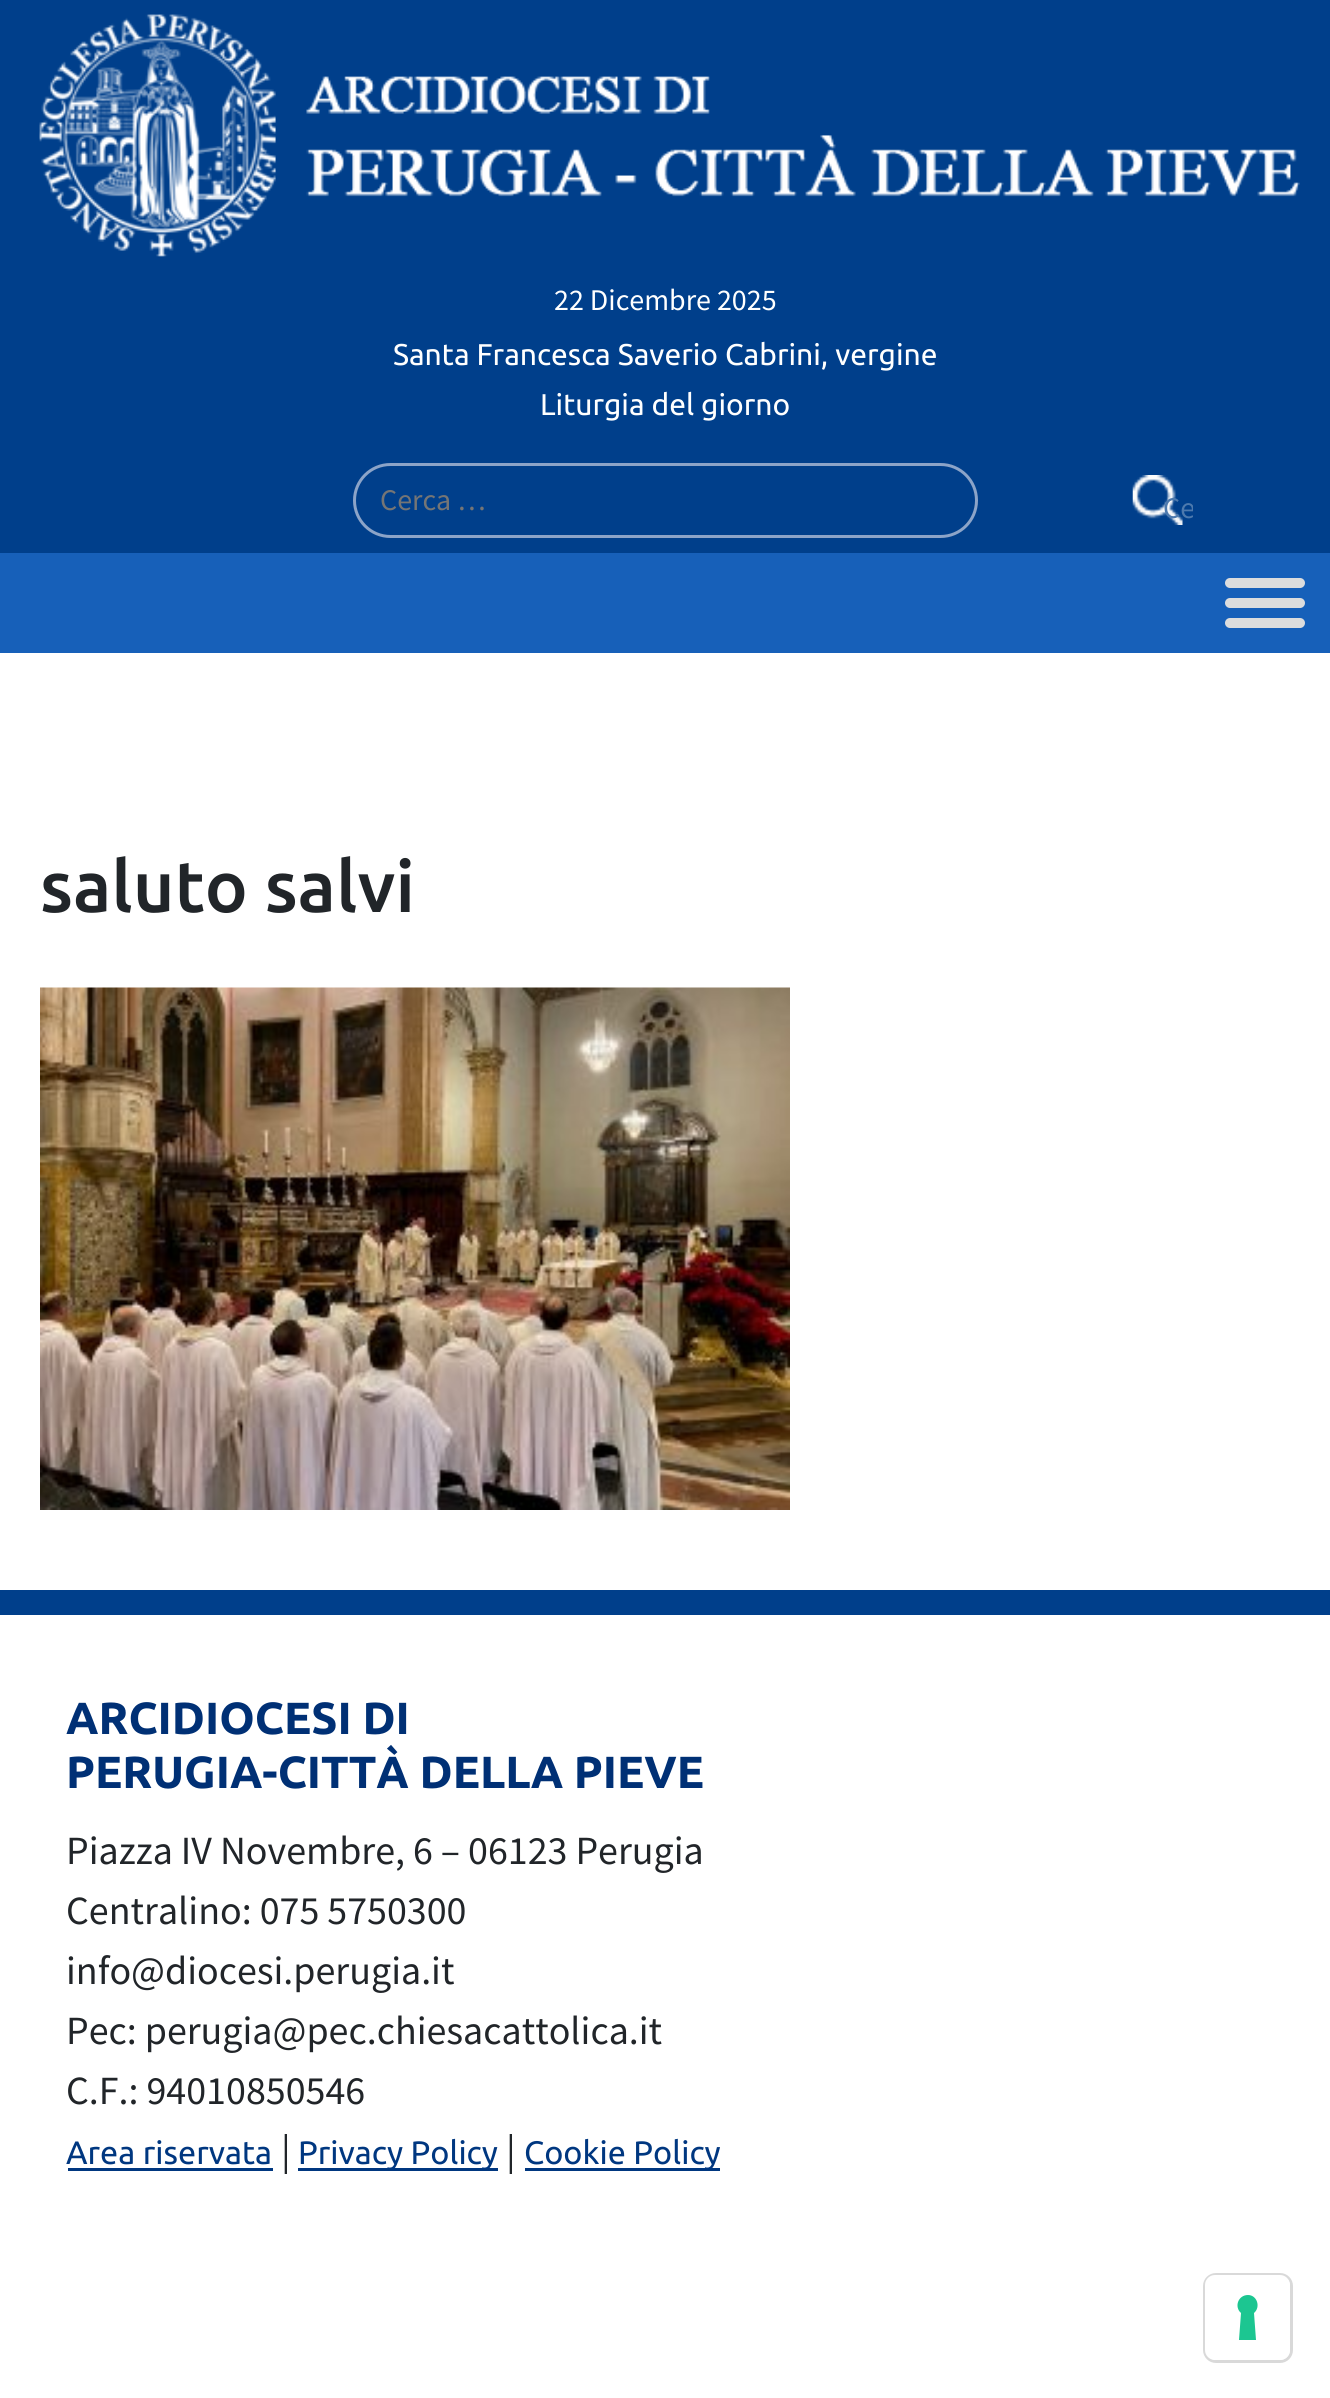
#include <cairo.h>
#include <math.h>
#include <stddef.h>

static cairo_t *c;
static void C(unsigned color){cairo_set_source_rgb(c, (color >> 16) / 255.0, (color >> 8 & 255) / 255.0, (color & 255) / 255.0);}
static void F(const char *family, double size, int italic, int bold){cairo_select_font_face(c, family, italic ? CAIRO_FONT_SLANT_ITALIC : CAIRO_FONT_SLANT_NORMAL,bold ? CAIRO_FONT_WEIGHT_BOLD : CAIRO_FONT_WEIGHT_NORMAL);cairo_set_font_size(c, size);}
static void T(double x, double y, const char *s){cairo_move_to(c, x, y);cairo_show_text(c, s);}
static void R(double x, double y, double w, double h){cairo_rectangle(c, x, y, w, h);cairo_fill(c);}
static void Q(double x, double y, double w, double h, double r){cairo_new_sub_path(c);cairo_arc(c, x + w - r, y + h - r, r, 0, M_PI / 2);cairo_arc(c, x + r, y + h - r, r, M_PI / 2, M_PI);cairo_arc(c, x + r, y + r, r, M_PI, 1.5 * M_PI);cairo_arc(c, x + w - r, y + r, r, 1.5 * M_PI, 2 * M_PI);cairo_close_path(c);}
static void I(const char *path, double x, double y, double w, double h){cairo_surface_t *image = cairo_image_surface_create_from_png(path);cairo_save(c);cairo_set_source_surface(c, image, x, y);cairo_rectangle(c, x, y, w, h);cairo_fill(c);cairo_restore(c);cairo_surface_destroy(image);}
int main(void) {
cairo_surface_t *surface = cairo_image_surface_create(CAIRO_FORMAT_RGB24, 1330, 2398);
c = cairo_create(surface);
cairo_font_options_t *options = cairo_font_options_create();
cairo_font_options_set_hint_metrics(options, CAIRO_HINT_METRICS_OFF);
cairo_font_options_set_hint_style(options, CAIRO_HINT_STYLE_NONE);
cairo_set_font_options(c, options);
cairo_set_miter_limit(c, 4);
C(0xffffff);
cairo_paint(c);
C(0x003f8b);
R(0,0,1330,553);
I("1.png",39,14,1261,243);
F("Source Sans Pro",30,0,0);
C(0xffffff);
T(554,310,"22 Dicembre 2025");
F("Ubuntu",30,0,0);
T(393,365,"Santa Francesca Saverio Cabrini, vergine");
T(540,415,"Liturgia del giorno");
Q(354.5,464.5,622,72,36);
C(0x8ca4c8);
cairo_set_line_width(c,3);
cairo_stroke(c);
F("Source Sans Pro",30,0,0);
C(0x757575);
T(380,510,"Cerca …");
I("2.png",1132,475,51,50);
cairo_save(c);
Q(1133,475,60,50,8);
cairo_clip(c);
C(0x4d79ad);
T(1163,518,"Ce");
cairo_restore(c);
C(0x1760b9);
R(0,553,1330,100);
C(0xdddddd);
Q(1225,578,80,10,5);
cairo_fill(c);
Q(1225,598,80,10,5);
cairo_fill(c);
Q(1225,618,80,10,5);
cairo_fill(c);
F("Ubuntu Medium",72,0,0);
C(0x212529);
T(40,912,"saluto salvi");
I("3.png",40,987,750,523);
C(0x003f8b);
R(0,1590,1330,25);
F("Ubuntu",45,0,1);
C(0x003075);
T(66,1734,"ARCIDIOCESI DI");
T(66,1788,"PERUGIA-CITTÀ DELLA PIEVE");
F("Source Sans Pro",40,0,0);
C(0x212529);
T(66,1864,"Piazza IV Novembre, 6 – 06123 Perugia");
T(66,1924,"Centralino: 075 5750300");
T(66,1984,"info@diocesi.perugia.it");
T(66,2044,"Pec: perugia@pec.chiesacattolica.it");
T(66,2104,"C.F.: 94010850546");
F("Ubuntu",32.5,0,0);
C(0x003780);
T(66,2164,"Area riservata");
R(68,2168,205,3);
F("Source Sans Pro",40,0,0);
C(0x212529);
T(281,2164,"|");
C(0x003780);
R(298,2168,200,3);
F("Ubuntu",32.5,0,0);
T(298,2164,"Privacy Policy");
F("Source Sans Pro",40,0,0);
C(0x212529);
T(506,2164,"|");
C(0x003780);
R(525,2168,195,3);
F("Ubuntu",32.5,0,0);
T(524,2164,"Cookie Policy");
Q(1204.5,2274.5,87,87,11.5);
C(0xd9d9d9);
cairo_stroke(c);
C(0xffffff);
Q(1205,2275,85,85,10);
cairo_fill(c);
C(0x1cc691);
cairo_set_fill_rule(c,CAIRO_FILL_RULE_EVEN_ODD);
cairo_new_path(c);
cairo_move_to(c,1248,2295);
cairo_curve_to(c,1257,2295,1261,2307,1254,2313);
cairo_line_to(c,1256,2340);
cairo_line_to(c,1239,2340);
cairo_line_to(c,1241,2313);
cairo_curve_to(c,1234,2307,1238,2295,1248,2295);
cairo_close_path(c);
cairo_fill(c);
cairo_surface_write_to_png(surface, "o.png");
cairo_font_options_destroy(options);
cairo_destroy(c);
cairo_surface_destroy(surface);
return 0;
}
